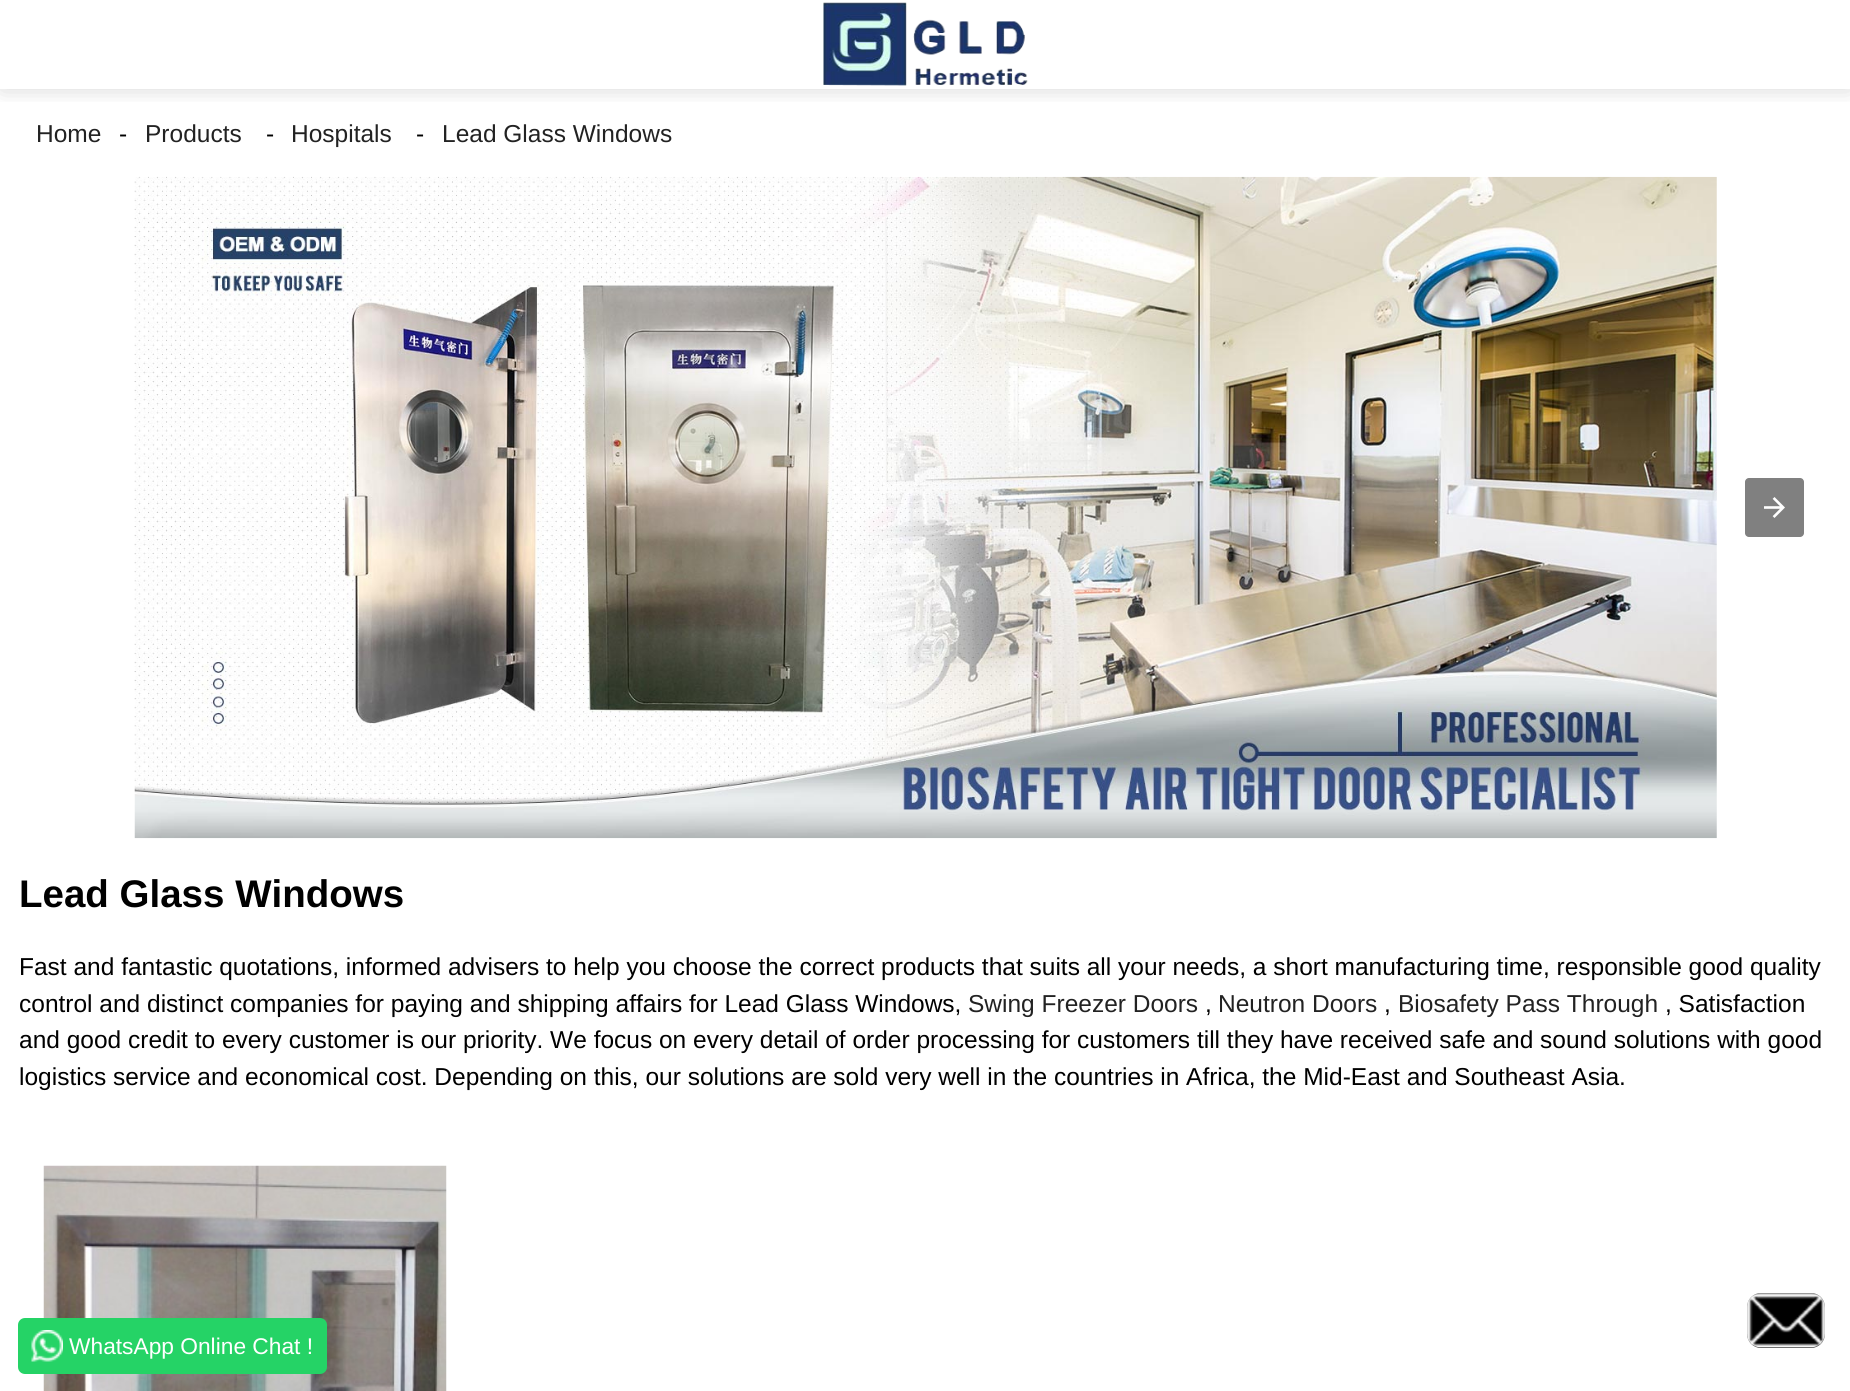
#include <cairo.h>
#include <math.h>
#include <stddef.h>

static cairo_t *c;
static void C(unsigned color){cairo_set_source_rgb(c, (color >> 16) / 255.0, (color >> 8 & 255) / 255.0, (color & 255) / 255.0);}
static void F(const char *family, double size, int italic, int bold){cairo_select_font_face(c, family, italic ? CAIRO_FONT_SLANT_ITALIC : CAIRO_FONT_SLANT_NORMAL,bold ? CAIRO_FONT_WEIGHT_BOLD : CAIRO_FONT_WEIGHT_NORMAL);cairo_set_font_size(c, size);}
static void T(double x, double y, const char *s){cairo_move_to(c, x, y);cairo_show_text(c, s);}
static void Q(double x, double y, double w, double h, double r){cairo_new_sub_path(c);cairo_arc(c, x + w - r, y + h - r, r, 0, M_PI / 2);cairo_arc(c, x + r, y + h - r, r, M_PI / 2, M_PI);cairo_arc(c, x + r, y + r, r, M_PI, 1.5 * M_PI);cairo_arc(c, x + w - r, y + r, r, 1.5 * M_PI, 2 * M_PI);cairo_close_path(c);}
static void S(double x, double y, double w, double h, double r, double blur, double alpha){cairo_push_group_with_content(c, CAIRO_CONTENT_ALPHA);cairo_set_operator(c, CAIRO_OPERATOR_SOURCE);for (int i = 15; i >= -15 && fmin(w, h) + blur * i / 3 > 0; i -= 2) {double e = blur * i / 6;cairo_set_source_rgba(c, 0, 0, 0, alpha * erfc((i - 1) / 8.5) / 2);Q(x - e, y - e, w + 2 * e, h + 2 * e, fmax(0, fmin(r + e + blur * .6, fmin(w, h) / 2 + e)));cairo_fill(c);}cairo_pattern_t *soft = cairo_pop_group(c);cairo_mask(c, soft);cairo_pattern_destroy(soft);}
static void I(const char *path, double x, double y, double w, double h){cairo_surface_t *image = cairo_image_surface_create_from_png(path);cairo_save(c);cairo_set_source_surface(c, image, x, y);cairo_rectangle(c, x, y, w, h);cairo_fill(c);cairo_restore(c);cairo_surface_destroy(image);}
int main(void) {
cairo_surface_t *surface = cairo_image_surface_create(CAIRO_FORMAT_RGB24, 1850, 1391);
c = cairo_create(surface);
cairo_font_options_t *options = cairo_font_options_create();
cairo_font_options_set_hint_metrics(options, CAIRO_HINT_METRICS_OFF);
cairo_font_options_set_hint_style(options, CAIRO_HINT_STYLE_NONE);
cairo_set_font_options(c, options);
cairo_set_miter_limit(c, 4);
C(0xffffff);
cairo_paint(c);
cairo_save(c);
cairo_rectangle(c,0,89,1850,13);
cairo_clip(c);
C(0x000000);
S(2,2,1848,86,0,11.5,.17);
cairo_restore(c);
I("1.png",823,2,205,84);
F("Liberation Sans",24.5,0,0);
C(0x222222);
T(36,142,"Home");
C(0x000000);
T(119,142,"-");
C(0x222222);
T(145,142,"Products");
C(0x000000);
T(266,142,"-");
C(0x222222);
T(291,142,"Hospitals");
C(0x000000);
T(416,142,"-");
C(0x222222);
T(442,142,"Lead Glass Windows");
I("2.png",134,176,1583,663);
C(0x808080);
Q(1745,478,59,59,4);
cairo_fill(c);
I("3.png",1764,497,21,21);
F("Liberation Sans",38.5,0,1);
C(0x000000);
T(19,907,"Lead Glass Windows");
F("Liberation Sans",24.5,0,0);
T(19,975,"Fast and fantastic quotations, informed advisers to help you choose the correct products that suits all your needs, a short manufacturing time, responsible good quality");
T(19,1012,"control and distinct companies for paying and shipping affairs for Lead Glass Windows,");
C(0x222222);
T(968,1012,"Swing Freezer Doors");
C(0x000000);
T(1205,1012,",");
C(0x222222);
T(1218,1012,"Neutron Doors");
C(0x000000);
T(1384,1012,",");
C(0x222222);
T(1398,1012,"Biosafety Pass Through");
C(0x000000);
T(1665,1012,", Satisfaction");
T(19,1048,"and good credit to every customer is our priority. We focus on every detail of order processing for customers till they have received safe and sound solutions with good");
T(19,1085,"logistics service and economical cost. Depending on this, our solutions are sold very well in the countries in Africa, the Mid-East and Southeast Asia.");
I("4.png",43,1165,404,226);
C(0x25d366);
Q(18,1318,309,56,7);
cairo_fill(c);
I("5.png",31,1330,32,32);
F("Liberation Sans",22.75,0,0);
C(0xffffff);
T(69,1354,"WhatsApp Online Chat !");
C(0x000000);
Q(1747,1293,78,55,14);
cairo_fill(c);
I("6.png",1747,1293,78,55);
cairo_surface_write_to_png(surface, "o.png");
cairo_font_options_destroy(options);
cairo_destroy(c);
cairo_surface_destroy(surface);
return 0;
}
